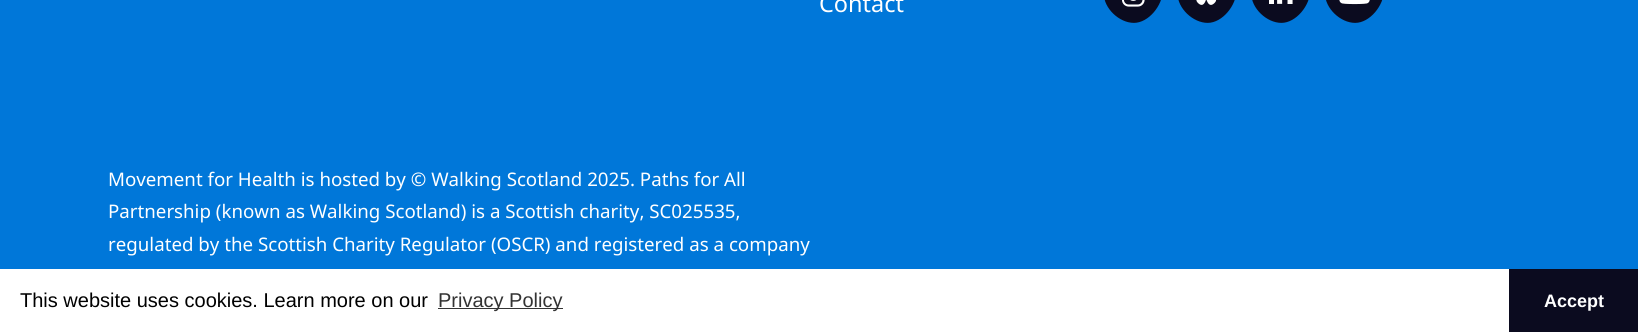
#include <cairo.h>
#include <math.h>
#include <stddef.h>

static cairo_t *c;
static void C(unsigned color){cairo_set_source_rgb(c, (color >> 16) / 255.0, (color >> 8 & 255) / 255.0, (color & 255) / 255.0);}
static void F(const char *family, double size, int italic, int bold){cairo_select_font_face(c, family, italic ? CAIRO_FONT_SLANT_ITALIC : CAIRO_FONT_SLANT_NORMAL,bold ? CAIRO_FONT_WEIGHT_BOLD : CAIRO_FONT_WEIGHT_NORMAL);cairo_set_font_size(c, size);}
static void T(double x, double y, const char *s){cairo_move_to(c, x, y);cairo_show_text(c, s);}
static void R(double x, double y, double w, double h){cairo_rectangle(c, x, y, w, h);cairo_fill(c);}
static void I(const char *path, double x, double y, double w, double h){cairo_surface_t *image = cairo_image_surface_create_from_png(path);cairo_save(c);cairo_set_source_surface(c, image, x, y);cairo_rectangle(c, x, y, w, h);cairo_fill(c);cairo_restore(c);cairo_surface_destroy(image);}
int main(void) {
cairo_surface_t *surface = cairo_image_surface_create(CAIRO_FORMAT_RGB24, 1638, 332);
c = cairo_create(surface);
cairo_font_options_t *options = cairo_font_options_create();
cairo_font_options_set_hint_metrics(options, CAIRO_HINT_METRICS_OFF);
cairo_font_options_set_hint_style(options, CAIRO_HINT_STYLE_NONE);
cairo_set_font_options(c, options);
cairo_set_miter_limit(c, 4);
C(0x0077d9);
cairo_paint(c);
F("Noto Sans",23.5,0,0);
C(0xffffff);
T(819,12,"Contact");
I("1.png",1104,0,57,23);
I("2.png",1178,0,57,23);
I("3.png",1252,0,57,23);
I("4.png",1326,0,57,23);
F("Noto Sans",18.7,0,0);
T(108,186,"Movement for Health is hosted by © Walking Scotland 2025. Paths for All");
T(108,218,"Partnership (known as Walking Scotland) is a Scottish charity, SC025535,");
T(108,251,"regulated by the Scottish Charity Regulator (OSCR) and registered as a company");
R(0,269,1509,63);
F("Liberation Sans",20,0,0);
C(0x000000);
T(20,307,"This website uses cookies. Learn more on our");
C(0x333333);
R(438,308,125,1);
T(438,307,"Privacy Policy");
C(0x0b0b1f);
R(1509,269,129,63);
F("Liberation Sans",18,0,1);
C(0xffffff);
T(1544,307,"Accept");
cairo_surface_write_to_png(surface, "o.png");
cairo_font_options_destroy(options);
cairo_destroy(c);
cairo_surface_destroy(surface);
return 0;
}
